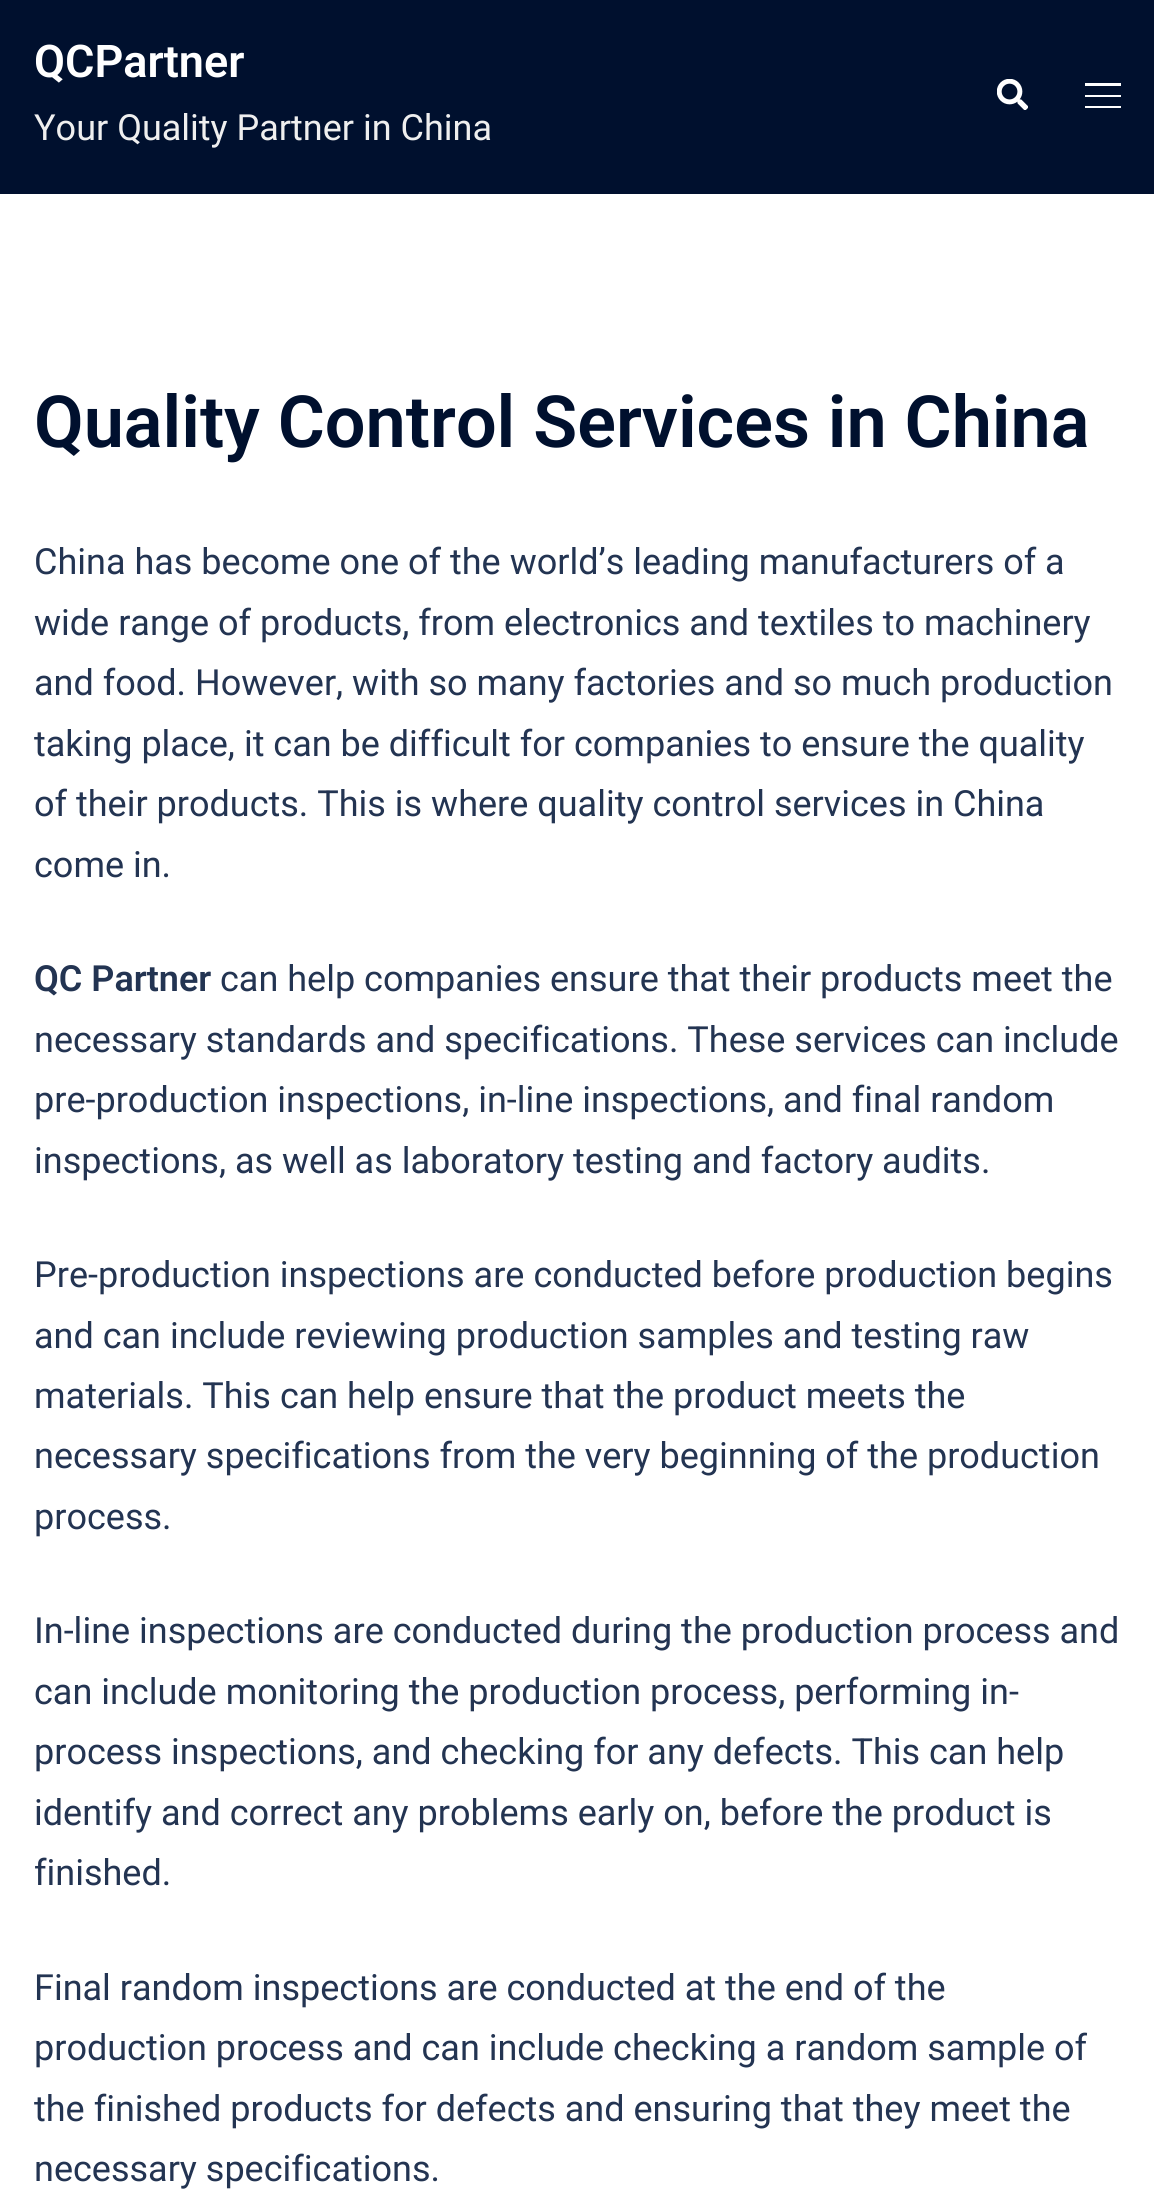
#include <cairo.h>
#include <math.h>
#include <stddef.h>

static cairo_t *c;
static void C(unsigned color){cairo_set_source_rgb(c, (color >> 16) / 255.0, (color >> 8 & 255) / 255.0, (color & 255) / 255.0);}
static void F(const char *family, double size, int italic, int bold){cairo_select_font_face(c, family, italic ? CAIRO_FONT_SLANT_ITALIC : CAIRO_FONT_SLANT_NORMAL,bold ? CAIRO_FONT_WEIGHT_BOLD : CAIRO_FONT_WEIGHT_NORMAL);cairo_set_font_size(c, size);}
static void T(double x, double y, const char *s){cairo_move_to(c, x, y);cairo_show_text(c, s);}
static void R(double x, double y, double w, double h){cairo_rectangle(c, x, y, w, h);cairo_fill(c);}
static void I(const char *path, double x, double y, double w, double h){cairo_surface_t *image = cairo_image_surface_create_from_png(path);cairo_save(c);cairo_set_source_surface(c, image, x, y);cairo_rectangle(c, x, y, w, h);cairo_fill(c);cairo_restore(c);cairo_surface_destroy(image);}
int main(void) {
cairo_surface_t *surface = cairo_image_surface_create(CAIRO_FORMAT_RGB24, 1154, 2199);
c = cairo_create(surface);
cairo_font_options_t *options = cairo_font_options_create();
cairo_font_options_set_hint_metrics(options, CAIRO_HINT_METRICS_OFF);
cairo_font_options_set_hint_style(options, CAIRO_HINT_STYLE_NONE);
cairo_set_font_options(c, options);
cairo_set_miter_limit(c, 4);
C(0xffffff);
cairo_paint(c);
C(0x00102e);
R(0,0,1154,194);
F("Roboto SemiBold",45,0,0);
C(0xffffff);
T(34,77,"QCPartner");
F("Roboto",36,0,0);
C(0xefefef);
T(34,140,"Your Quality Partner in China");
I("1.png",997,79,31,31);
C(0xffffff);
R(1085,83,36,3);
R(1085,95,36,2);
R(1085,106,36,2);
F("Roboto SemiBold",72,0,0);
C(0x00102e);
T(34,447,"Quality Control Services in China");
F("Roboto",36,0,0);
C(0x233452);
T(34,574,"China has become one of the world’s leading manufacturers of a");
T(34,635,"wide range of products, from electronics and textiles to machinery");
T(34,695,"and food. However, with so many factories and so much production");
T(34,756,"taking place, it can be difficult for companies to ensure the quality");
T(34,816,"of their products. This is where quality control services in China");
T(34,877,"come in.");
F("Roboto SemiBold",36,0,0);
T(34,991,"QC Partner");
F("Roboto",36,0,0);
T(220,991,"can help companies ensure that their products meet the");
T(34,1052,"necessary standards and specifications. These services can include");
T(34,1112,"pre-production inspections, in-line inspections, and final random");
T(34,1173,"inspections, as well as laboratory testing and factory audits.");
T(34,1287,"Pre-production inspections are conducted before production begins");
T(34,1348,"and can include reviewing production samples and testing raw");
T(34,1408,"materials. This can help ensure that the product meets the");
T(34,1468,"necessary specifications from the very beginning of the production");
T(34,1529,"process.");
T(34,1643,"In-line inspections are conducted during the production process and");
T(34,1704,"can include monitoring the production process, performing in-");
T(34,1764,"process inspections, and checking for any defects. This can help");
T(34,1825,"identify and correct any problems early on, before the product is");
T(34,1885,"finished.");
T(34,2000,"Final random inspections are conducted at the end of the");
T(34,2060,"production process and can include checking a random sample of");
T(34,2121,"the finished products for defects and ensuring that they meet the");
T(34,2181,"necessary specifications.");
cairo_surface_write_to_png(surface, "o.png");
cairo_font_options_destroy(options);
cairo_destroy(c);
cairo_surface_destroy(surface);
return 0;
}
